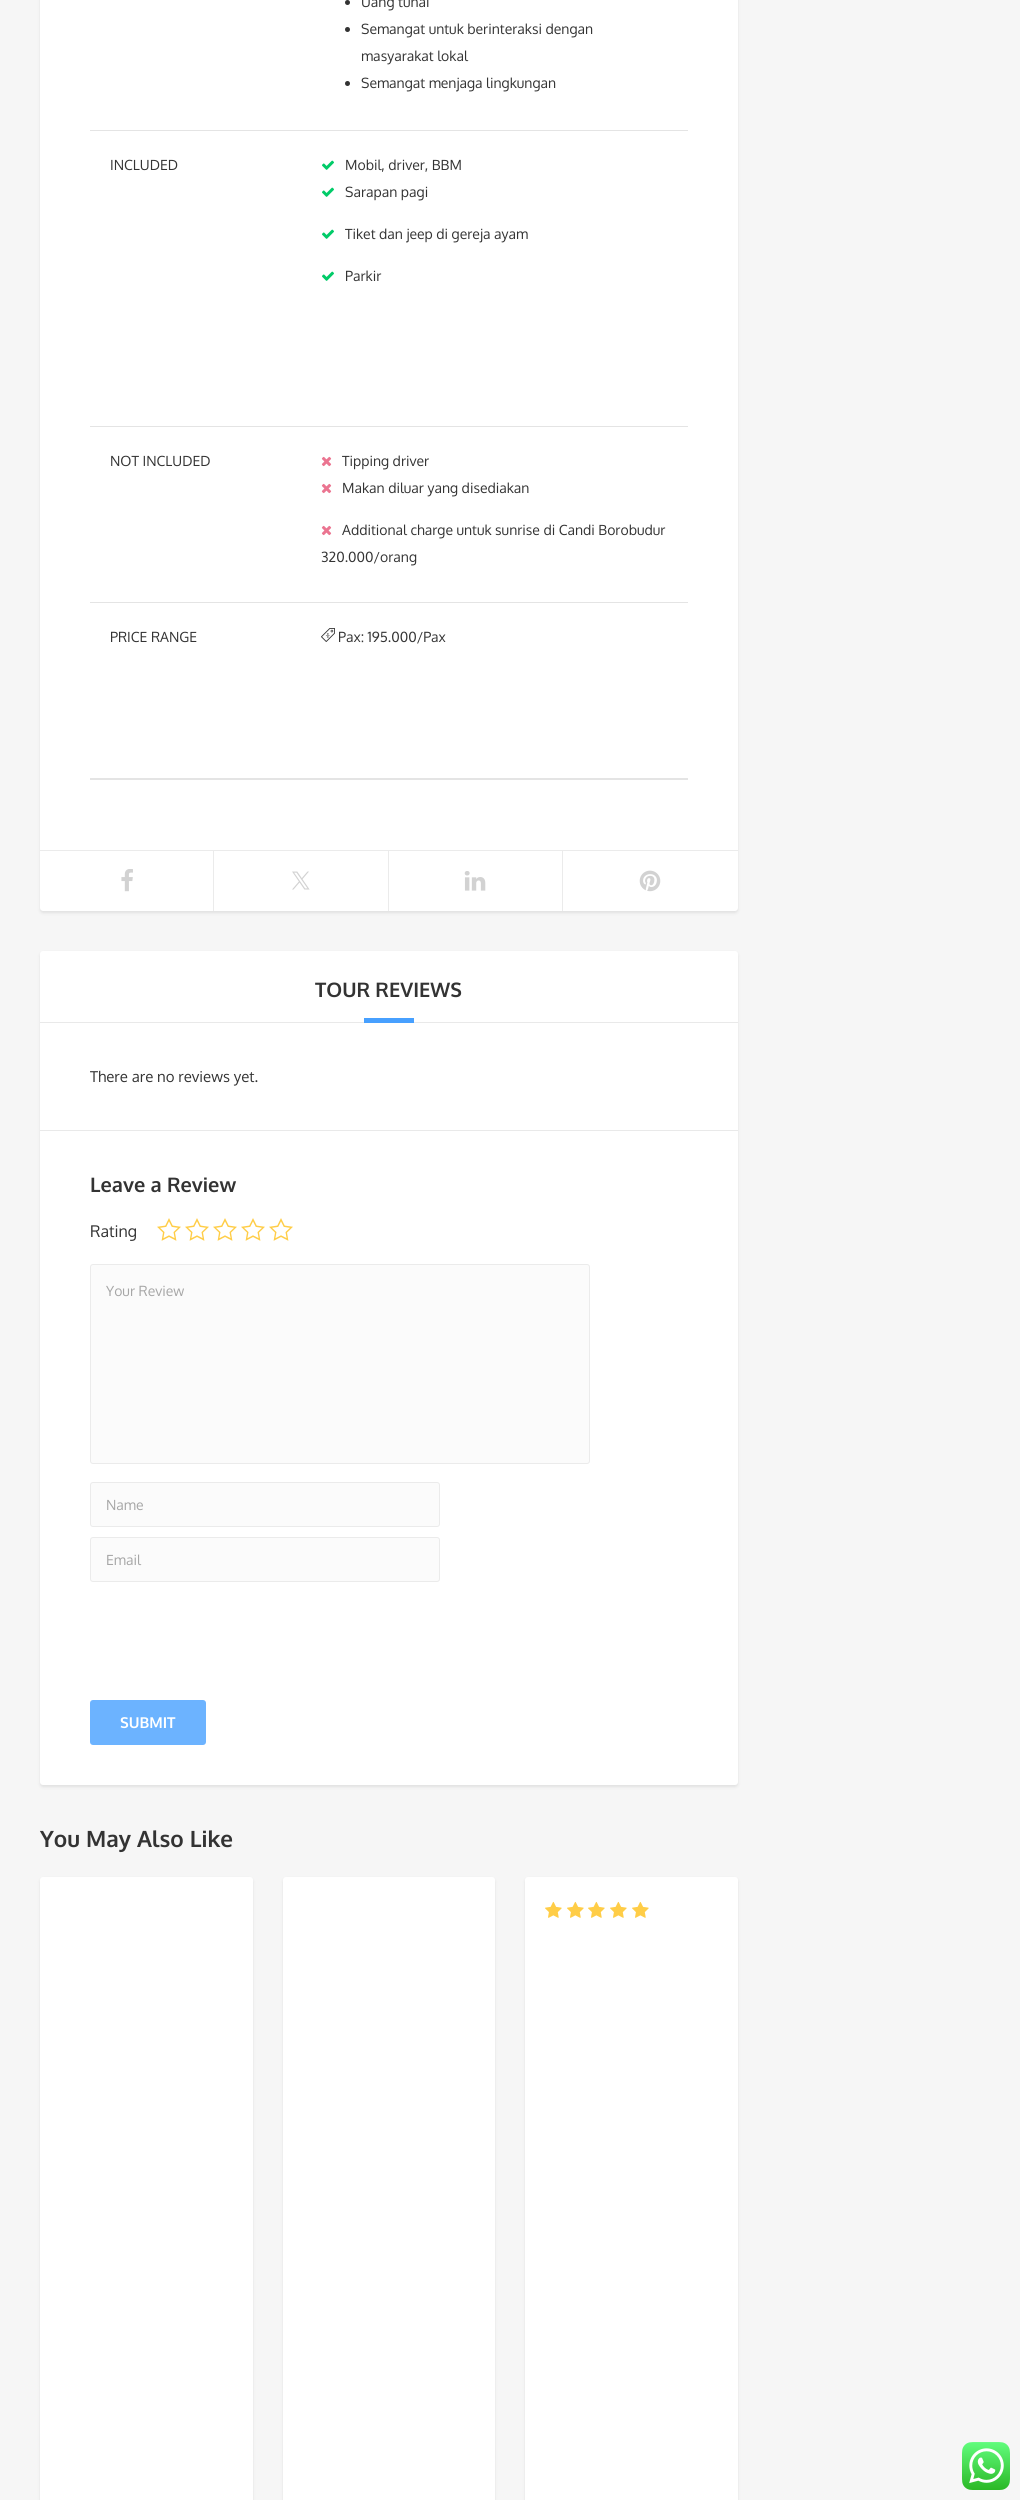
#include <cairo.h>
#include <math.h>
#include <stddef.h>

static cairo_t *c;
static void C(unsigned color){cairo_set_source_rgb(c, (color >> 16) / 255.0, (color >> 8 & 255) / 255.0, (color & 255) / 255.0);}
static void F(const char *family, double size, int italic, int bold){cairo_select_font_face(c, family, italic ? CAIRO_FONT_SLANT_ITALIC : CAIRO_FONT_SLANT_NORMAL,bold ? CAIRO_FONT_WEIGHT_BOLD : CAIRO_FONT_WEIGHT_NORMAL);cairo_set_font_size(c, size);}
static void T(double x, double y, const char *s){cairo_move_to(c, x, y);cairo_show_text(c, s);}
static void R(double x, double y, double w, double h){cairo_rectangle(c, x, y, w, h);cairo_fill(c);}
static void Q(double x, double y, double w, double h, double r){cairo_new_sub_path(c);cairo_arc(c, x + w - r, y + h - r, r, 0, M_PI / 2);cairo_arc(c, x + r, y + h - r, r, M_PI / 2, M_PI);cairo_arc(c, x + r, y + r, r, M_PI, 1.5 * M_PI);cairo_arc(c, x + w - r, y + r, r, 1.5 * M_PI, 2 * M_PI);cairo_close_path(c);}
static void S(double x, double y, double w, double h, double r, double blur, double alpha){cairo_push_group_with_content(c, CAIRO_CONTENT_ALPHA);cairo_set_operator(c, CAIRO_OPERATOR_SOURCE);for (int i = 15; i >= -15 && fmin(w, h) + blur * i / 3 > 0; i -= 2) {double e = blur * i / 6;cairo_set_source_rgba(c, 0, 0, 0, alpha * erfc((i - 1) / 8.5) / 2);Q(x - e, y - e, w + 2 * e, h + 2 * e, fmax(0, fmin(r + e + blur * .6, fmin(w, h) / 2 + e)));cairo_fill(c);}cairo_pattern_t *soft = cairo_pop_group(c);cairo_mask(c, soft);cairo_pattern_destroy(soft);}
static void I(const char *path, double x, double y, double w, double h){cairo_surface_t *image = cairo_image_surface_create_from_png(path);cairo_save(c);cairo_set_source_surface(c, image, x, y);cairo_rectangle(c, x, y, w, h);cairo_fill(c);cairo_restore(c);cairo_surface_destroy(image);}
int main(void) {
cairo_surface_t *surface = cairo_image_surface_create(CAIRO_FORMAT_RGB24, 1020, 2500);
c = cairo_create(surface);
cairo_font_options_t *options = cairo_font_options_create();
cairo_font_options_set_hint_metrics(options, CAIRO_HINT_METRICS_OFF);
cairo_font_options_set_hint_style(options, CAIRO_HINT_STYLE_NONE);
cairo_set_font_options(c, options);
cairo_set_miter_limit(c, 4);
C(0xf6f6f6);
cairo_paint(c);
C(0x000000);
S(40,-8,698,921,3,1.5,.09);
C(0xffffff);
cairo_new_path(c);
cairo_move_to(c,40,-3);
cairo_line_to(c,738,-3);
cairo_line_to(c,738,908);
cairo_curve_to(c,738,909.5,736.5,911,735,911);
cairo_line_to(c,43,911);
cairo_curve_to(c,41.5,911,40,909.5,40,908);
cairo_close_path(c);
cairo_fill(c);
C(0xe4e4e4);
R(90,778,598,2);
R(90,130,598,1);
C(0x333333);
cairo_arc(c,347.5,2.5,2.5,0,2 * M_PI);
cairo_fill(c);
F("Oxygen",14,0,0);
T(361,7,"Uang tunai");
cairo_new_path(c);
cairo_arc(c,347.5,29.5,2.5,0,2 * M_PI);
cairo_fill(c);
T(361,34,"Semangat untuk berinteraksi dengan");
T(361,61,"masyarakat lokal");
cairo_new_path(c);
cairo_arc(c,347.5,83.5,2.5,0,2 * M_PI);
cairo_fill(c);
T(361,88,"Semangat menjaga lingkungan");
C(0xe4e4e4);
R(90,426,598,1);
C(0x333333);
T(110,170,"INCLUDED");
I("1.png",322,160,12,10);
T(345,170,"Mobil, driver, BBM");
I("1.png",322,187,12,10);
T(345,197,"Sarapan pagi");
I("1.png",322,229,12,10);
T(345,239,"Tiket dan jeep di gereja ayam");
I("1.png",322,271,12,10);
T(345,281,"Parkir");
C(0xe4e4e4);
R(90,602,598,1);
C(0x333333);
T(110,466,"NOT INCLUDED");
I("2.png",321,456,11,11);
T(342,466,"Tipping driver");
I("2.png",321,483,11,11);
T(342,493,"Makan diluar yang disediakan");
I("2.png",321,525,11,11);
T(342,535,"Additional charge untuk sunrise di Candi Borobudur");
T(321,562,"320.000/orang");
T(110,642,"PRICE RANGE");
I("3.png",321,628,14,14);
T(338,642,"Pax: 195.000/Pax");
C(0xebebeb);
R(40,850,698,1);
R(213,851,1,60);
I("4.png",121,869,12,23);
R(388,851,1,60);
I("5.png",292,871,18,19);
R(562,851,1,60);
I("6.png",464,871,22,20);
I("7.png",639,870,22,22);
C(0x000000);
S(40,953,698,834,3,1.5,.09);
C(0xffffff);
Q(40,951,698,834,3);
cairo_fill(c);
C(0xe9e9e9);
R(40,1022,698,1);
F("Oxygen",20,0,1);
C(0x333333);
T(315,997,"TOUR REVIEWS");
C(0x47a0ff);
R(364,1018,50,5);
F("Oxygen",15,0,0);
C(0x333333);
T(90,1082,"There are no reviews yet.");
C(0xe9e9e9);
R(40,1130,698,1);
F("Oxygen",20,0,1);
C(0x333333);
T(90,1192,"Leave a Review");
F("Oxygen",16,0,0);
T(90,1237,"Rating");
I("8.png",157,1218,24,23);
I("8.png",185,1218,24,23);
I("8.png",213,1218,24,23);
I("8.png",241,1218,24,23);
I("8.png",269,1218,24,23);
C(0xfbfbfb);
Q(90.5,1264.5,499,199,2.5);
cairo_fill_preserve(c);
C(0xebebeb);
cairo_set_line_width(c,1);
cairo_stroke(c);
F("Oxygen",14,0,0);
C(0xa6a6a6);
T(106,1296,"Your Review");
C(0xfbfbfb);
Q(90.5,1482.5,349,44,2.5);
cairo_fill_preserve(c);
C(0xebebeb);
cairo_stroke(c);
C(0xa6a6a6);
T(106,1510,"Name");
C(0xfbfbfb);
Q(90.5,1537.5,349,44,2.5);
cairo_fill_preserve(c);
C(0xebebeb);
cairo_stroke(c);
C(0xa6a6a6);
T(106,1565,"Email");
C(0x6cb3ff);
Q(90,1700,116,45,3);
cairo_fill(c);
F("Oxygen",15,0,1);
C(0xffffff);
T(120,1728,"SUBMIT");
F("Oxygen",22.5,0,1);
C(0x333333);
T(40,1847,"You May Also Like");
C(0x000000);
S(40,1879,213,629,3,1.5,.09);
C(0xffffff);
Q(40,1877,213,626,3);
cairo_fill(c);
C(0x000000);
S(283,1879,212,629,3,1.5,.09);
C(0xffffff);
Q(283,1877,212,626,3);
cairo_fill(c);
C(0x000000);
S(525,1879,213,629,3,1.5,.09);
C(0xffffff);
Q(525,1877,213,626,3);
cairo_fill(c);
I("9.png",545,1901,17,17);
I("9.png",567,1901,17,17);
I("9.png",588,1901,17,17);
I("9.png",610,1901,17,17);
I("9.png",632,1901,17,17);
I("10.png",962,2442,48,48);
cairo_surface_write_to_png(surface, "o.png");
cairo_font_options_destroy(options);
cairo_destroy(c);
cairo_surface_destroy(surface);
return 0;
}
